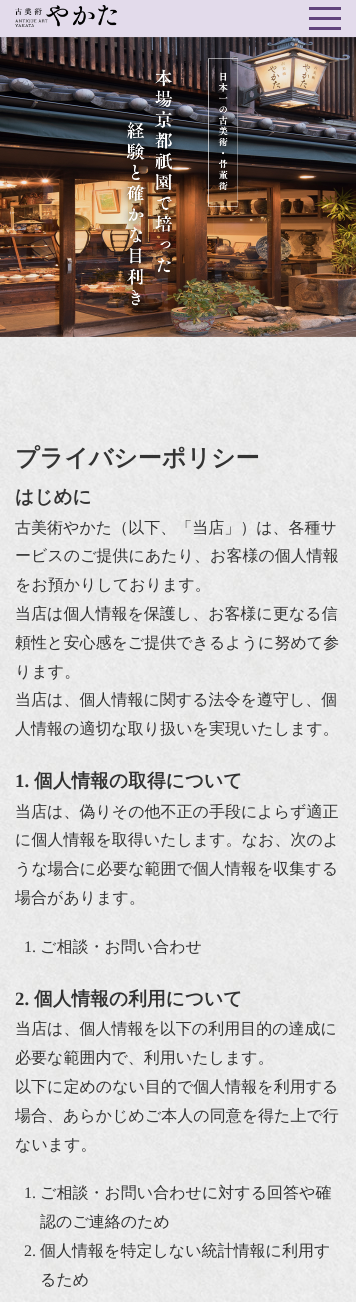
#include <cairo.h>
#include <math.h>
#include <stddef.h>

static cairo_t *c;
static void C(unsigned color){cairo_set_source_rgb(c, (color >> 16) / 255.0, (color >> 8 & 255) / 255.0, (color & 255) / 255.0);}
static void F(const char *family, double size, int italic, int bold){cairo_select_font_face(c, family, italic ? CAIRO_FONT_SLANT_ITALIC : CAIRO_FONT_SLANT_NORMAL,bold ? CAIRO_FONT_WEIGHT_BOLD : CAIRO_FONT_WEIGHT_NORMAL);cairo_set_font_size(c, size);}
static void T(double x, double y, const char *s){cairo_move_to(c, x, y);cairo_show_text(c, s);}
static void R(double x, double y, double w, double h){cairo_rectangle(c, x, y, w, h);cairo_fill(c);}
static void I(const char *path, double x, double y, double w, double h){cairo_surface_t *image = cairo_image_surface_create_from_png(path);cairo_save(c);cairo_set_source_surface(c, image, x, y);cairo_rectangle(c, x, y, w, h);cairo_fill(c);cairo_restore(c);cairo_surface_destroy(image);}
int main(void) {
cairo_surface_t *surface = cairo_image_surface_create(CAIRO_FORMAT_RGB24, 356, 1302);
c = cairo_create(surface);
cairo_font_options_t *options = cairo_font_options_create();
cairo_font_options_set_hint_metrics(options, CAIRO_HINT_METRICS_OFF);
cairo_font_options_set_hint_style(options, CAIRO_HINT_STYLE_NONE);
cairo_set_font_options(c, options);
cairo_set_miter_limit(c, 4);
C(0xffffff);
cairo_paint(c);
I("1.png",0,337,356,965);
C(0xe3dbeb);
R(0,0,356,37);
I("2.png",15,5,102,22);
C(0x61447c);
R(309,7,32,3);
R(309,17,32,3);
R(309,27,32,3);
I("3.png",0,37,356,300);
I("4.png",120,58,118,252);
F("WenQuanYi Zen Hei",24,0,1);
C(0x333333);
T(15,466,"プライバシーポリシー");
F("WenQuanYi Zen Hei",18.75,0,1);
T(15,503,"はじめに");
F("WenQuanYi Zen Hei Medium",16,0,0);
T(15,533,"古美術やかた（以下、「当店」）は、各種サ");
T(15,561,"ービスのご提供にあたり、お客様の個人情報");
T(15,590,"をお預かりしております。");
T(15,619,"当店は個人情報を保護し、お客様に更なる信");
T(15,648,"頼性と安心感をご提供できるように努めて参");
T(15,677,"ります。");
T(15,705,"当店は、個人情報に関する法令を遵守し、個");
T(15,734,"人情報の適切な取り扱いを実現いたします。");
F("Liberation Serif",18.75,0,1);
T(15,787,"1.");
F("WenQuanYi Zen Hei",18.75,0,1);
T(34,787,"個人情報の取得について");
F("WenQuanYi Zen Hei Medium",16,0,0);
T(15,817,"当店は、偽りその他不正の手段によらず適正");
T(15,845,"に個人情報を取得いたします。なお、次のよ");
T(15,874,"うな場合に必要な範囲で個人情報を収集する");
T(15,903,"場合があります。");
F("Liberation Serif",16,0,0);
T(24,952,"1.");
F("WenQuanYi Zen Hei Medium",16,0,0);
T(40,952,"ご相談・お問い合わせ");
F("Liberation Serif",18.75,0,1);
T(15,1005,"2.");
F("WenQuanYi Zen Hei",18.75,0,1);
T(34,1005,"個人情報の利用について");
F("WenQuanYi Zen Hei Medium",16,0,0);
T(15,1034,"当店は、個人情報を以下の利用目的の達成に");
T(15,1063,"必要な範囲内で、利用いたします。");
T(15,1092,"以下に定めのない目的で個人情報を利用する");
T(15,1121,"場合、あらかじめご本人の同意を得た上で行");
T(15,1150,"ないます。");
F("Liberation Serif",16,0,0);
T(24,1198,"1.");
F("WenQuanYi Zen Hei Medium",16,0,0);
T(40,1198,"ご相談・お問い合わせに対する回答や確");
T(40,1227,"認のご連絡のため");
F("Liberation Serif",16,0,0);
T(24,1256,"2.");
F("WenQuanYi Zen Hei Medium",16,0,0);
T(40,1256,"個人情報を特定しない統計情報に利用す");
T(40,1285,"るため");
cairo_surface_write_to_png(surface, "o.png");
cairo_font_options_destroy(options);
cairo_destroy(c);
cairo_surface_destroy(surface);
return 0;
}
